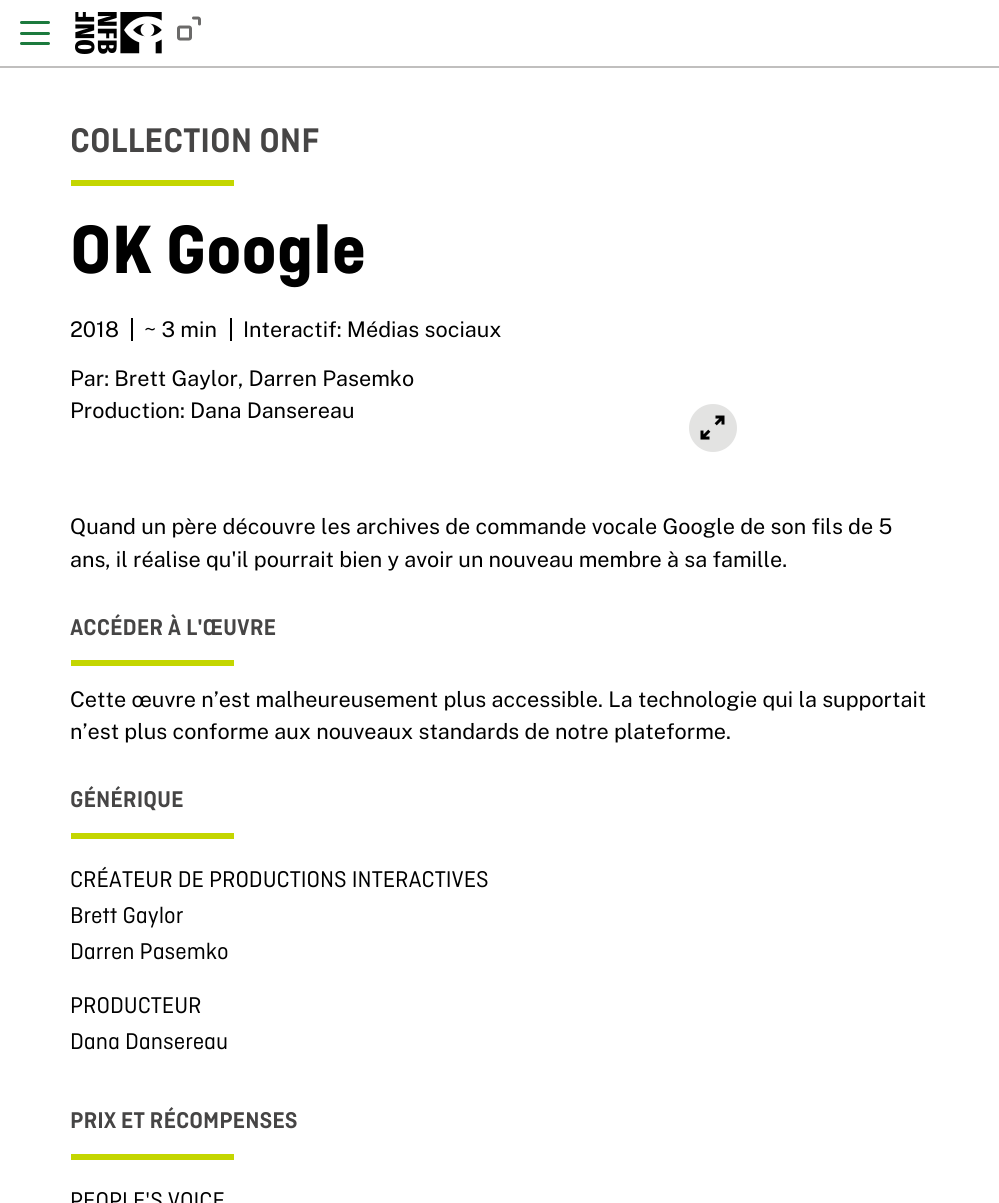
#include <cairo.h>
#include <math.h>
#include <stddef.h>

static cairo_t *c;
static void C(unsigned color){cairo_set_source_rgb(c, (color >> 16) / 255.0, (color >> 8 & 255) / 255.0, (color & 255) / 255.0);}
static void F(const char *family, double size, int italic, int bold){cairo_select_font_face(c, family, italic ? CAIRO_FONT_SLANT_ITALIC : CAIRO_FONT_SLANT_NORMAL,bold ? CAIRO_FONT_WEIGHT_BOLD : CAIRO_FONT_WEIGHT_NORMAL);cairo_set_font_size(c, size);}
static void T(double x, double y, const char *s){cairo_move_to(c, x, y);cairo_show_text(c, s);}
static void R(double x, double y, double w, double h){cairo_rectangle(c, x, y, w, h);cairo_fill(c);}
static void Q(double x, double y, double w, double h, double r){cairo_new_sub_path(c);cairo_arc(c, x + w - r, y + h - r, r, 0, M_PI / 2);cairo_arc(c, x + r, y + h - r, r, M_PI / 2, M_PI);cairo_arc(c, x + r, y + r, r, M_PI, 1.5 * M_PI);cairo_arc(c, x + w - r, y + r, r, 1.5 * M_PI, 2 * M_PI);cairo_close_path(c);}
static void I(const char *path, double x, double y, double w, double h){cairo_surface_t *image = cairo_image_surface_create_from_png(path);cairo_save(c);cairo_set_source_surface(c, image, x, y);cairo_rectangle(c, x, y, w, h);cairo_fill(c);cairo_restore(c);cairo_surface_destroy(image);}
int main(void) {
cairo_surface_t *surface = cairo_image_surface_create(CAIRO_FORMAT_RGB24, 999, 1203);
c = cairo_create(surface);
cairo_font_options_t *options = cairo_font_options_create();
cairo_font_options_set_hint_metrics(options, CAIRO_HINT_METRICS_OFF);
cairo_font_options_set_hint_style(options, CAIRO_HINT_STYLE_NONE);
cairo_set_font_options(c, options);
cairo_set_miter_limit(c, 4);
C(0xffffff);
cairo_paint(c);
C(0xc0bfbe);
R(0,66,999,2);
C(0x1c7a3e);
Q(20,32,30,3,1.5);
cairo_fill(c);
Q(20,21,30,3,1.5);
cairo_fill(c);
Q(20,42,30,3,1.5);
cairo_fill(c);
I("1.png",75,12,87,42);
I("2.png",177,16,24,25);
F("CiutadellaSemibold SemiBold",36,0,0);
C(0x464545);
T(70,152,"COLLECTION ONF");
C(0xc4d600);
R(71,180,163,6);
F("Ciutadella",72,0,1);
C(0x000000);
T(70,273,"OK Google");
F("Public Sans",21.6,0,0);
T(70,337,"2018");
R(131,318,2,23);
T(144,337,"~ 3 min");
R(230,318,2,23);
T(243,337,"Interactif: Médias sociaux");
T(70,386,"Par: Brett Gaylor, Darren Pasemko");
T(70,418,"Production: Dana Dansereau");
C(0xe3e3e2);
cairo_new_path(c);
cairo_arc(c,713,428,24,0,2 * M_PI);
cairo_fill(c);
I("3.png",700,415,25,25);
C(0x000000);
T(70,534,"Quand un père découvre les archives de commande vocale Google de son fils de 5");
T(70,567,"ans, il réalise qu'il pourrait bien y avoir un nouveau membre à sa famille.");
F("CiutadellaSemibold SemiBold",24,0,0);
C(0x464545);
T(70,635,"ACCÉDER À L'ŒUVRE");
C(0xc4d600);
R(71,660,163,6);
F("Public Sans",21.6,0,0);
C(0x000000);
T(70,707,"Cette œuvre n’est malheureusement plus accessible. La technologie qui la supportait");
T(70,739,"n’est plus conforme aux nouveaux standards de notre plateforme.");
F("CiutadellaSemibold SemiBold",24,0,0);
C(0x464545);
T(70,807,"GÉNÉRIQUE");
C(0xc4d600);
R(71,833,163,6);
F("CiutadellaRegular",24,0,0);
C(0x000000);
T(70,887,"CRÉATEUR DE PRODUCTIONS INTERACTIVES");
T(70,923,"Brett Gaylor");
T(70,959,"Darren Pasemko");
T(70,1013,"PRODUCTEUR");
T(70,1049,"Dana Dansereau");
F("CiutadellaSemibold SemiBold",24,0,0);
C(0x464545);
T(70,1128,"PRIX ET RÉCOMPENSES");
C(0xc4d600);
R(71,1154,163,6);
F("CiutadellaRegular",24,0,0);
C(0x000000);
T(70,1208,"PEOPLE'S VOICE");
cairo_surface_write_to_png(surface, "o.png");
cairo_font_options_destroy(options);
cairo_destroy(c);
cairo_surface_destroy(surface);
return 0;
}
